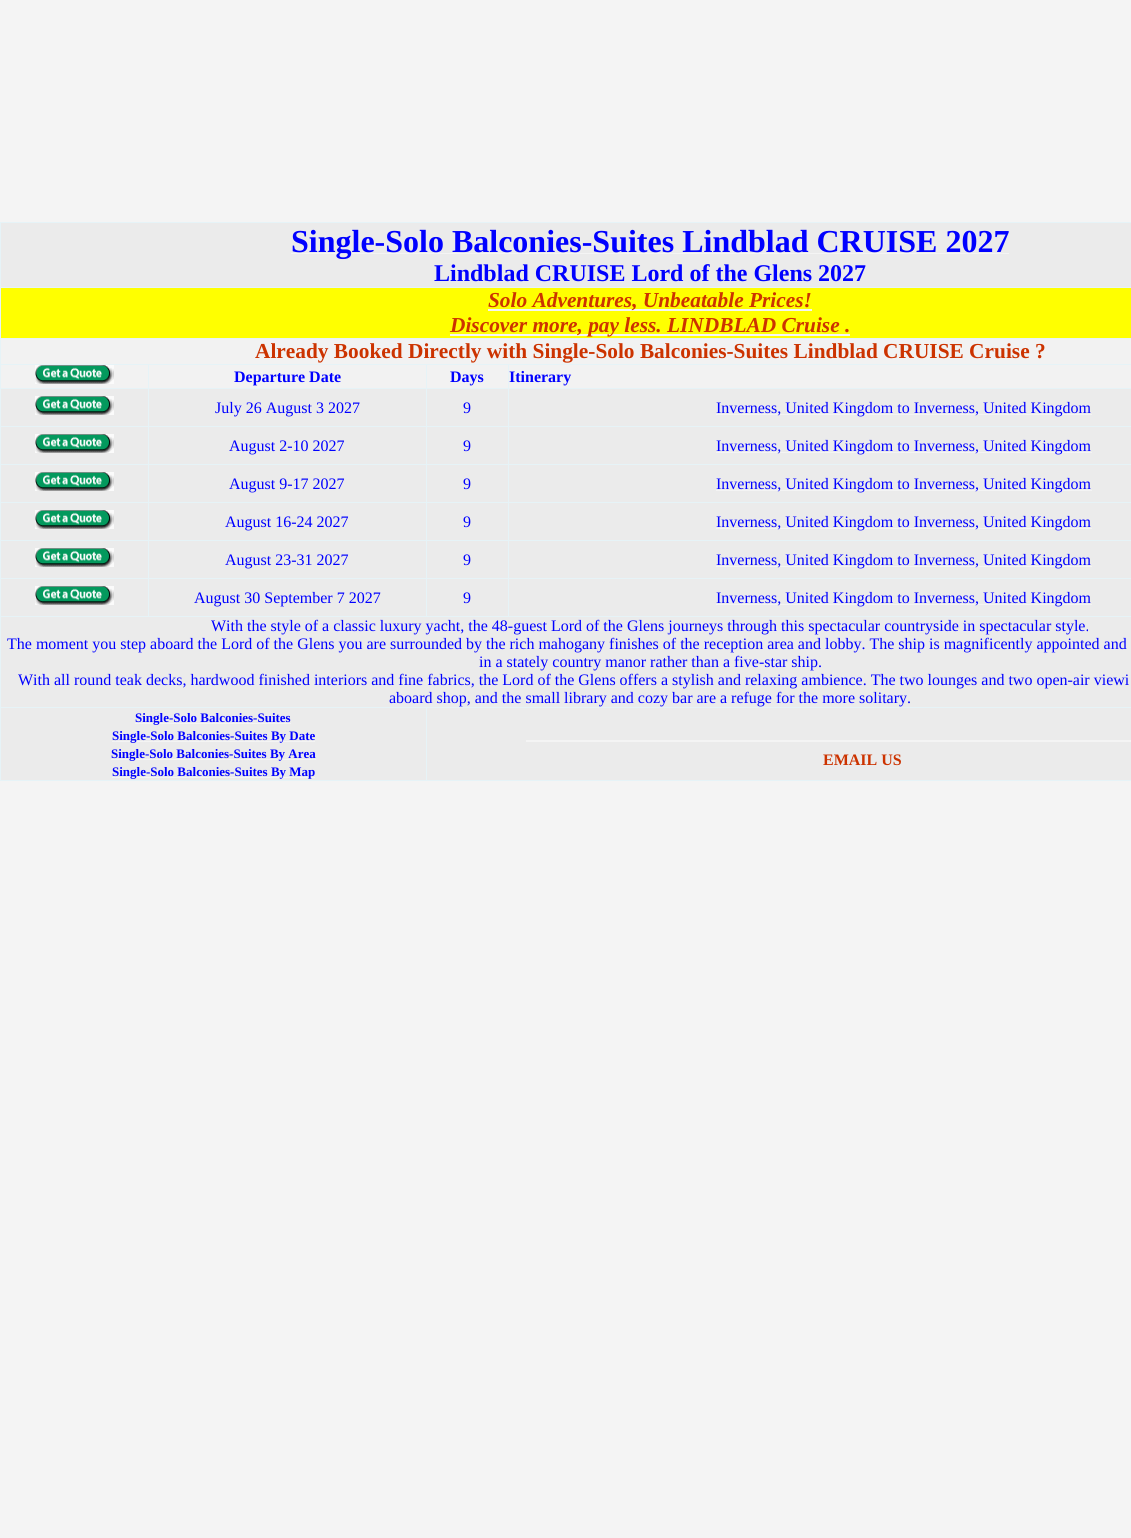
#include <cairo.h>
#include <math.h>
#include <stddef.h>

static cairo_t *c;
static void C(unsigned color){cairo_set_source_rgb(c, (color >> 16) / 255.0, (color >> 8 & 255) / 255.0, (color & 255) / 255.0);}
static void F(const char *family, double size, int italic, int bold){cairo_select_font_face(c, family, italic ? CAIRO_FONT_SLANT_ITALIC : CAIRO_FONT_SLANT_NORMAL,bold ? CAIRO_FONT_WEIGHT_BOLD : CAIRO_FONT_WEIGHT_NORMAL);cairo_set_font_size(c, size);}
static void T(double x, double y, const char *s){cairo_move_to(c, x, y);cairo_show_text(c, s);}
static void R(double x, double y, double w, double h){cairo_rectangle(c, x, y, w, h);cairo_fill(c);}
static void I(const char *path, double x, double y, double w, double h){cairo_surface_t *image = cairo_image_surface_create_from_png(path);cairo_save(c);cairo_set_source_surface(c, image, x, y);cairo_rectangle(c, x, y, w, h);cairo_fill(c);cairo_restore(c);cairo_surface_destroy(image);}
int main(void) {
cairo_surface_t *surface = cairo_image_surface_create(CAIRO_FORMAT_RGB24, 1131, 1538);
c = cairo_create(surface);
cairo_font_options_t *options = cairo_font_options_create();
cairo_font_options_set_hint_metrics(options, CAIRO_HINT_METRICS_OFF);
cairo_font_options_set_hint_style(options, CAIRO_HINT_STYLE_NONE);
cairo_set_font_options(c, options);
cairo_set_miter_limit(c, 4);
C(0xf4f4f4);
cairo_paint(c);
C(0xebebeb);
R(1,223,1130,557);
C(0xe6f3f7);
R(0,222,1131,1);
R(0,780,1131,1);
R(0,222,1,559);
C(0xf4f4f4);
R(291,253,718,1);
F("Liberation Serif",32,0,1);
C(0x0000ff);
T(291,252,"Single-Solo Balconies-Suites Lindblad CRUISE 2027");
F("Liberation Serif",24,0,1);
T(434,281,"Lindblad CRUISE Lord of the Glens 2027");
C(0xffff00);
R(1,288,1130,50);
C(0xe6f3f7);
R(0,287,1131,1);
C(0xf4f4f4);
R(488,309,324,2);
F("Liberation Serif",21.35,1,1);
C(0xcc3300);
T(488,307,"Solo Adventures, Unbeatable Prices!");
C(0xf4f4f4);
R(450,334,400,2);
C(0xcc3300);
T(450,332,"Discover more, pay less. LINDBLAD Cruise .");
C(0xf2f2f2);
R(1,339,1130,25);
C(0xe6f3f7);
R(0,338,1131,1);
F("Liberation Serif",21.35,0,1);
C(0xcc3300);
T(255,358,"Already Booked Directly with Single-Solo Balconies-Suites Lindblad CRUISE Cruise ?");
C(0xf2f2f2);
R(1,365,147,23);
C(0xe6f3f7);
R(508,364,623,1);
R(508,388,623,1);
R(508,426,623,1);
R(508,464,623,1);
R(508,502,623,1);
R(508,540,623,1);
R(508,578,623,1);
R(0,616,1131,1);
R(508,578,1,39);
R(426,578,83,1);
R(508,540,1,39);
R(426,540,83,1);
R(508,502,1,39);
R(426,502,83,1);
R(508,464,1,39);
R(426,464,83,1);
R(508,426,1,39);
R(426,426,83,1);
R(508,388,1,39);
R(426,388,83,1);
R(508,364,1,25);
R(426,364,83,1);
R(426,578,1,39);
R(148,578,279,1);
R(426,540,1,39);
R(148,540,279,1);
R(426,502,1,39);
R(148,502,279,1);
R(426,464,1,39);
R(148,464,279,1);
R(426,426,1,39);
R(148,426,279,1);
R(426,388,1,39);
R(148,388,279,1);
R(426,364,1,25);
R(148,364,279,1);
R(148,578,1,39);
R(0,578,149,1);
R(148,540,1,39);
R(0,540,149,1);
R(148,502,1,39);
R(0,502,149,1);
R(148,464,1,39);
R(0,464,149,1);
R(148,426,1,39);
R(0,426,149,1);
R(148,388,1,39);
R(0,388,149,1);
R(148,364,1,25);
R(0,364,149,1);
I("1.png",35,365,79,19);
C(0xf2f2f2);
R(149,365,277,23);
F("Liberation Serif",16,0,1);
C(0x0000ff);
T(234,382,"Departure Date");
C(0xf2f2f2);
R(427,365,81,23);
C(0x0000ff);
T(450,382,"Days");
C(0xf2f2f2);
R(509,365,622,23);
C(0x0000ff);
T(509,382,"Itinerary");
I("1.png",35,396,79,19);
F("Liberation Serif",16,0,0);
T(215,413,"July 26 August 3 2027");
T(463,413,"9");
C(0xf4f4f4);
R(716,414,376,1);
C(0x0000ff);
T(716,413,"Inverness, United Kingdom to Inverness, United Kingdom");
I("1.png",35,434,79,19);
T(229,451,"August 2-10 2027");
T(463,451,"9");
C(0xf4f4f4);
R(716,452,376,1);
C(0x0000ff);
T(716,451,"Inverness, United Kingdom to Inverness, United Kingdom");
I("1.png",35,472,79,19);
T(229,489,"August 9-17 2027");
T(463,489,"9");
C(0xf4f4f4);
R(716,490,376,1);
C(0x0000ff);
T(716,489,"Inverness, United Kingdom to Inverness, United Kingdom");
I("1.png",35,510,79,19);
T(225,527,"August 16-24 2027");
T(463,527,"9");
C(0xf4f4f4);
R(716,528,376,1);
C(0x0000ff);
T(716,527,"Inverness, United Kingdom to Inverness, United Kingdom");
I("1.png",35,548,79,19);
T(225,565,"August 23-31 2027");
T(463,565,"9");
C(0xf4f4f4);
R(716,566,376,1);
C(0x0000ff);
T(716,565,"Inverness, United Kingdom to Inverness, United Kingdom");
I("1.png",35,586,79,19);
T(194,603,"August 30 September 7 2027");
T(463,603,"9");
C(0xf4f4f4);
R(716,604,376,1);
C(0x0000ff);
T(716,603,"Inverness, United Kingdom to Inverness, United Kingdom");
T(211,631,"With the style of a classic luxury yacht, the 48-guest Lord of the Glens journeys through this spectacular countryside in spectacular style.");
T(7,649,"The moment you step aboard the Lord of the Glens you are surrounded by the rich mahogany finishes of the reception area and lobby. The ship is magnificently appointed and");
T(479,667,"in a stately country manor rather than a five-star ship.");
T(18,685,"With all round teak decks, hardwood finished interiors and fine fabrics, the Lord of the Glens offers a stylish and relaxing ambience. The two lounges and two open-air viewi");
T(389,703,"aboard shop, and the small library and cozy bar are a refuge for the more solitary.");
C(0xe6f3f7);
R(426,707,705,1);
R(426,707,1,74);
R(0,707,427,1);
C(0xf4f4f4);
R(135,723,156,1);
F("Liberation Serif",13,0,1);
C(0x0000ff);
T(135,722,"Single-Solo Balconies-Suites");
C(0xf4f4f4);
R(112,741,203,1);
C(0x0000ff);
T(112,740,"Single-Solo Balconies-Suites By Date");
C(0xf4f4f4);
R(111,759,205,1);
C(0x0000ff);
T(111,758,"Single-Solo Balconies-Suites By Area");
C(0xf4f4f4);
R(112,777,203,1);
C(0x0000ff);
T(112,776,"Single-Solo Balconies-Suites By Map");
F("Liberation Serif",16,0,1);
C(0xcc3300);
T(823,765,"EMAIL US");
C(0xf4f4f4);
R(526,740,605,2);
cairo_surface_write_to_png(surface, "o.png");
cairo_font_options_destroy(options);
cairo_destroy(c);
cairo_surface_destroy(surface);
return 0;
}
